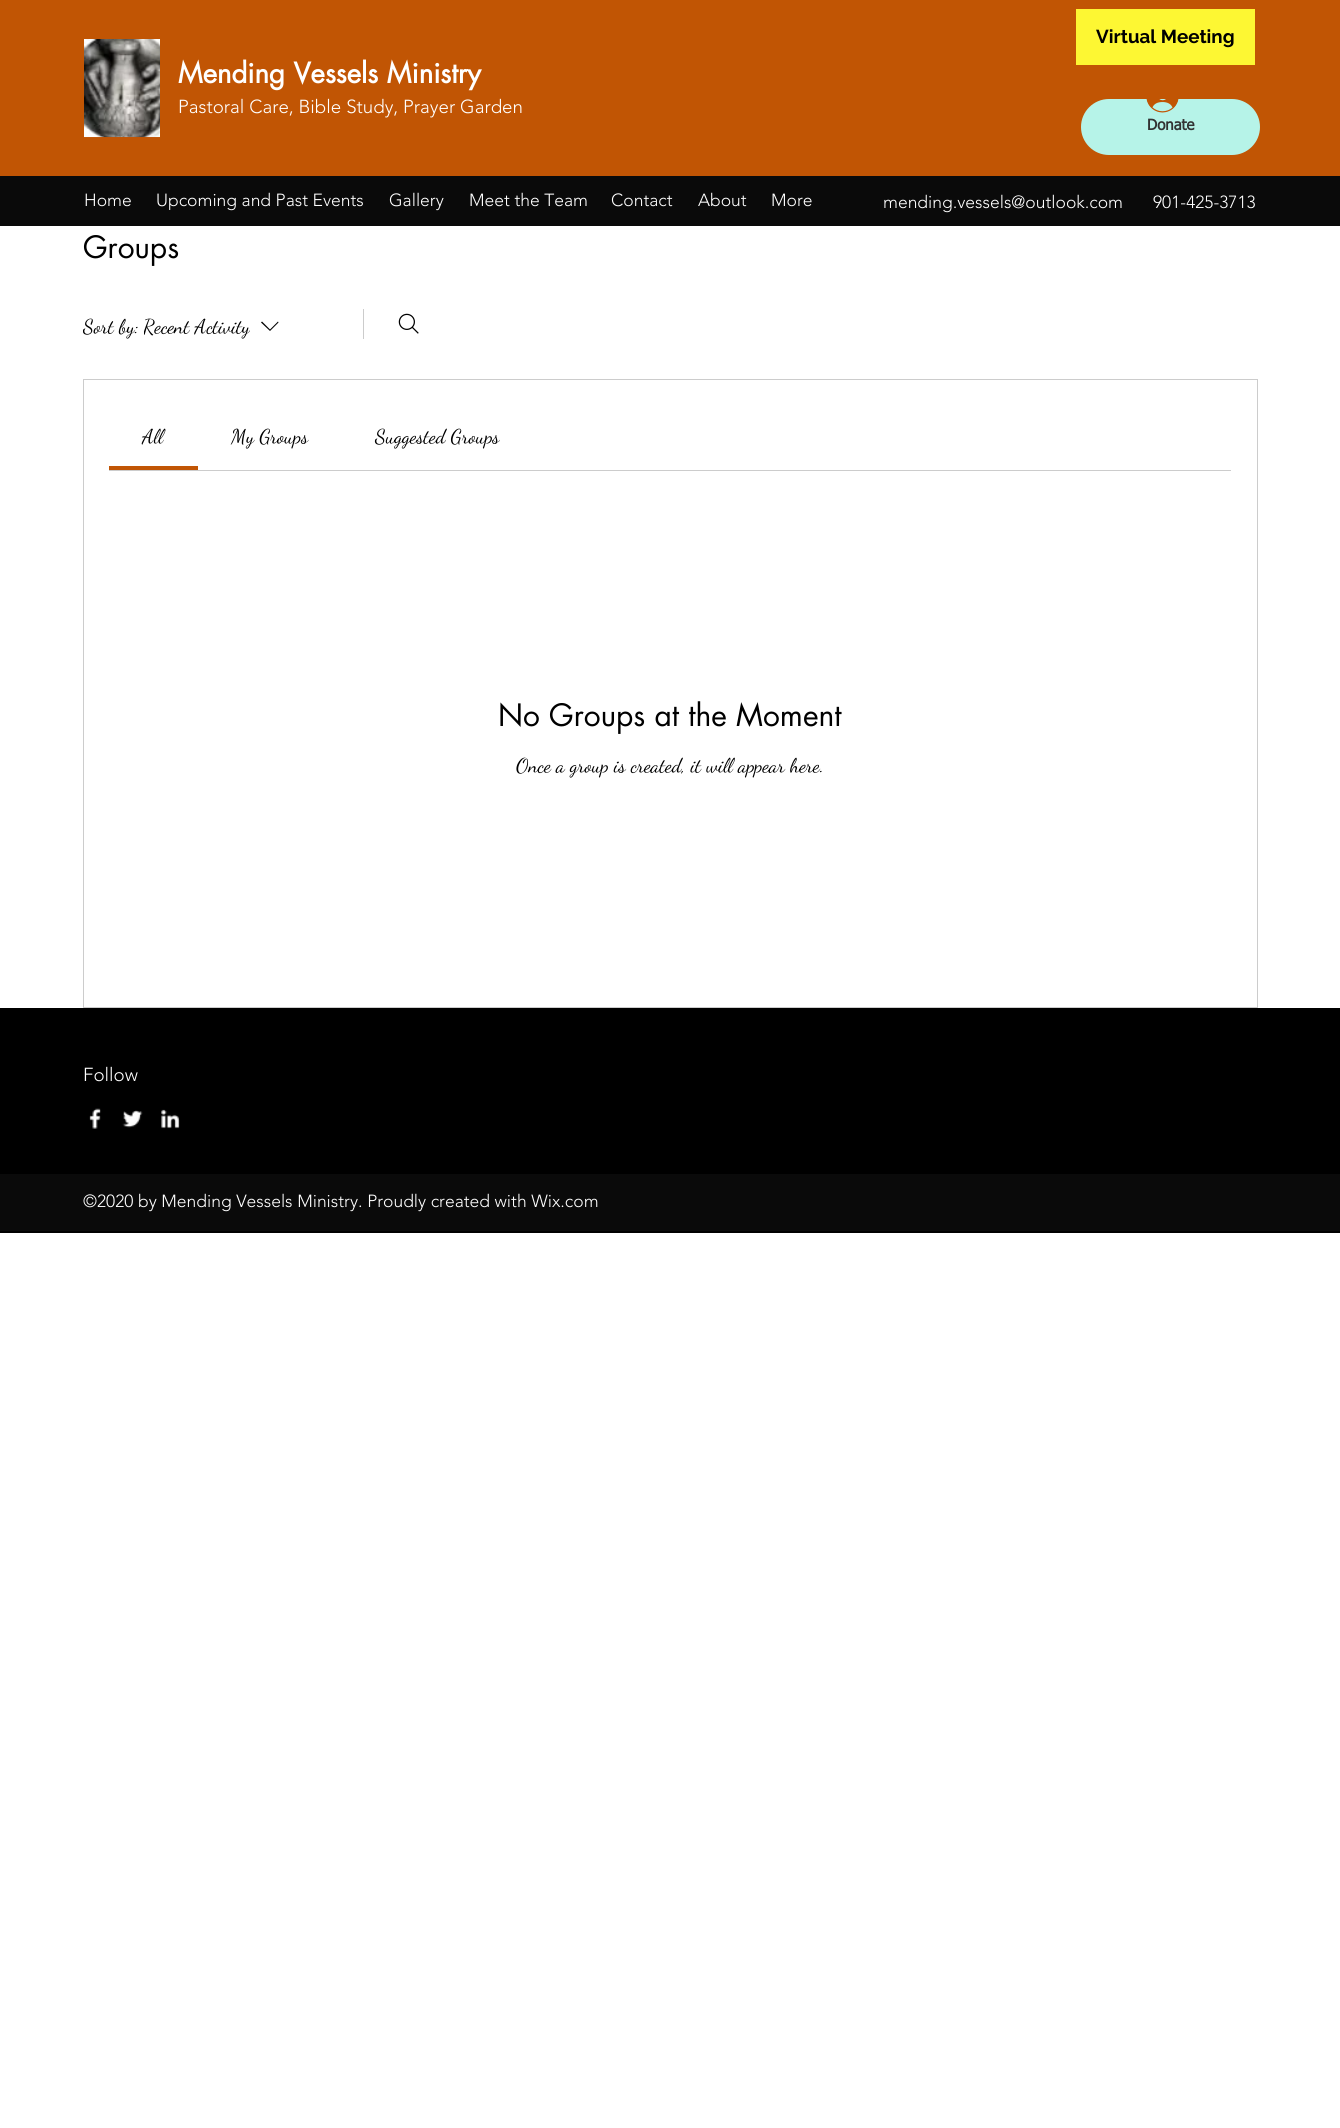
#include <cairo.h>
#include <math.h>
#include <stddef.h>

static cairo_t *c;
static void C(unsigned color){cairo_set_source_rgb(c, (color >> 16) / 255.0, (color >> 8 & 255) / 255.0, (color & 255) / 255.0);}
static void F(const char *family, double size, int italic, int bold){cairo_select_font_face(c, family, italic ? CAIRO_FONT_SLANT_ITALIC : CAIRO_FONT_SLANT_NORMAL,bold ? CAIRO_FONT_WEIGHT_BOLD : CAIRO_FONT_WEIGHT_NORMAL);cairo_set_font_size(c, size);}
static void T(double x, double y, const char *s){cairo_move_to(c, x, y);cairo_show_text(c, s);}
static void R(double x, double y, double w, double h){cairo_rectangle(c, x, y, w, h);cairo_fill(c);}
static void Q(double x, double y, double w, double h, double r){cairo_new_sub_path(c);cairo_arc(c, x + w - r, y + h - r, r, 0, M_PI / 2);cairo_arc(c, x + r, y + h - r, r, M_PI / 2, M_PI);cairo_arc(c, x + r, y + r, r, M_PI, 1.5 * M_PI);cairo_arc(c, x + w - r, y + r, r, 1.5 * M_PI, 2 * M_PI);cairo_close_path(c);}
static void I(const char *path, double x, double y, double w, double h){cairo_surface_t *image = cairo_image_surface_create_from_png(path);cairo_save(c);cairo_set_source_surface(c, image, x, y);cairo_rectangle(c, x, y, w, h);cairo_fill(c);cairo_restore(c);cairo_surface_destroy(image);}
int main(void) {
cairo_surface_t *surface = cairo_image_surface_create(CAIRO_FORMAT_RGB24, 1340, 2128);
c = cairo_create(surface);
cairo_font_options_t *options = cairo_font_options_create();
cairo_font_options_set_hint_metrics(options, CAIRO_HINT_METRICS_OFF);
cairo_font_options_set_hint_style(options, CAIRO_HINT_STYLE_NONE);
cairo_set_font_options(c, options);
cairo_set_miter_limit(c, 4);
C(0xffffff);
cairo_paint(c);
C(0xc15504);
R(0,0,1340,176);
I("1.png",84,39,76,99);
F("futura",27.5,0,1);
C(0xffffff);
T(178,83,"Mending Vessels Ministry");
F("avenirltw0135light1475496 Light",18.75,0,0);
T(178,113,"Pastoral Care, Bible Study, Prayer Garden");
C(0xfdf733);
R(1076,9,179,56);
F("Raleway",18.75,0,1);
C(0x000000);
T(1096,43,"Virtual Meeting");
C(0xb6f3e8);
Q(1081,99,179,56,28);
cairo_fill(c);
F("tahoma",15,0,1);
C(0x323232);
T(1147,130,"Donate");
I("2.png",1146,99,33,14);
C(0x0a0a0a);
R(0,176,1340,50);
F("avenirltw0135light1475496 Light",17.5,0,0);
C(0xffffff);
T(84,206,"Home");
T(156,206,"Upcoming and Past Events");
T(389,206,"Gallery");
T(469,206,"Meet the Team");
T(611,206,"Contact");
T(698,206,"About");
T(771,206,"More");
T(883,208,"mending.vessels@outlook.com");
T(1153,208,"901-425-3713");
F("futura",30,0,0);
C(0x000000);
T(83,258,"Groups");
cairo_save(c);
cairo_rectangle(c,83,311,167,30);
cairo_clip(c);
F("Dancing Script",20,0,0);
T(83,333,"Sort by:");
cairo_restore(c);
cairo_save(c);
cairo_rectangle(c,144,311,106,30);
cairo_clip(c);
F("Dancing Script",20,0,0);
T(143,333,"Recent Activity");
cairo_restore(c);
cairo_set_fill_rule(c,CAIRO_FILL_RULE_EVEN_ODD);
cairo_new_path(c);
cairo_move_to(c,278,321.5);
cairo_line_to(c,278.5,322.5);
cairo_line_to(c,270,331);
cairo_line_to(c,261,322.5);
cairo_line_to(c,262,321.5);
cairo_line_to(c,270,329.5);
cairo_close_path(c);
cairo_fill(c);
C(0xcccccc);
R(363,309,1,30);
I("3.png",398,313,21,21);
cairo_rectangle(c,83.5,379.5,1174,628);
cairo_set_line_width(c,1);
cairo_stroke(c);
R(109,470,1122,1);
C(0xc15504);
R(109,466,89,4);
F("Dancing Script",20,0,0);
C(0x000000);
T(142,443,"All");
T(231,443,"My Groups");
T(375,443,"Suggested Groups");
F("futura",30,0,0);
T(498,726,"No Groups at the Moment");
F("Dancing Script",20,0,0);
T(516,772,"Once a group is created, it will appear here.");
R(0,1008,1340,225);
F("avenirltw0135light1475496 Light",18.75,0,0);
C(0xffffff);
T(83,1081,"Follow");
I("4.png",89,1108,12,21);
I("5.png",122,1110,21,18);
I("6.png",161,1109,19,20);
C(0x0a0a0a);
R(0,1174,1340,57);
F("avenirltw0135light1475496 Light",17.5,0,0);
C(0xffffff);
T(83,1207,"©2020 by Mending Vessels Ministry. Proudly created with Wix.com");
cairo_surface_write_to_png(surface, "o.png");
cairo_font_options_destroy(options);
cairo_destroy(c);
cairo_surface_destroy(surface);
return 0;
}
